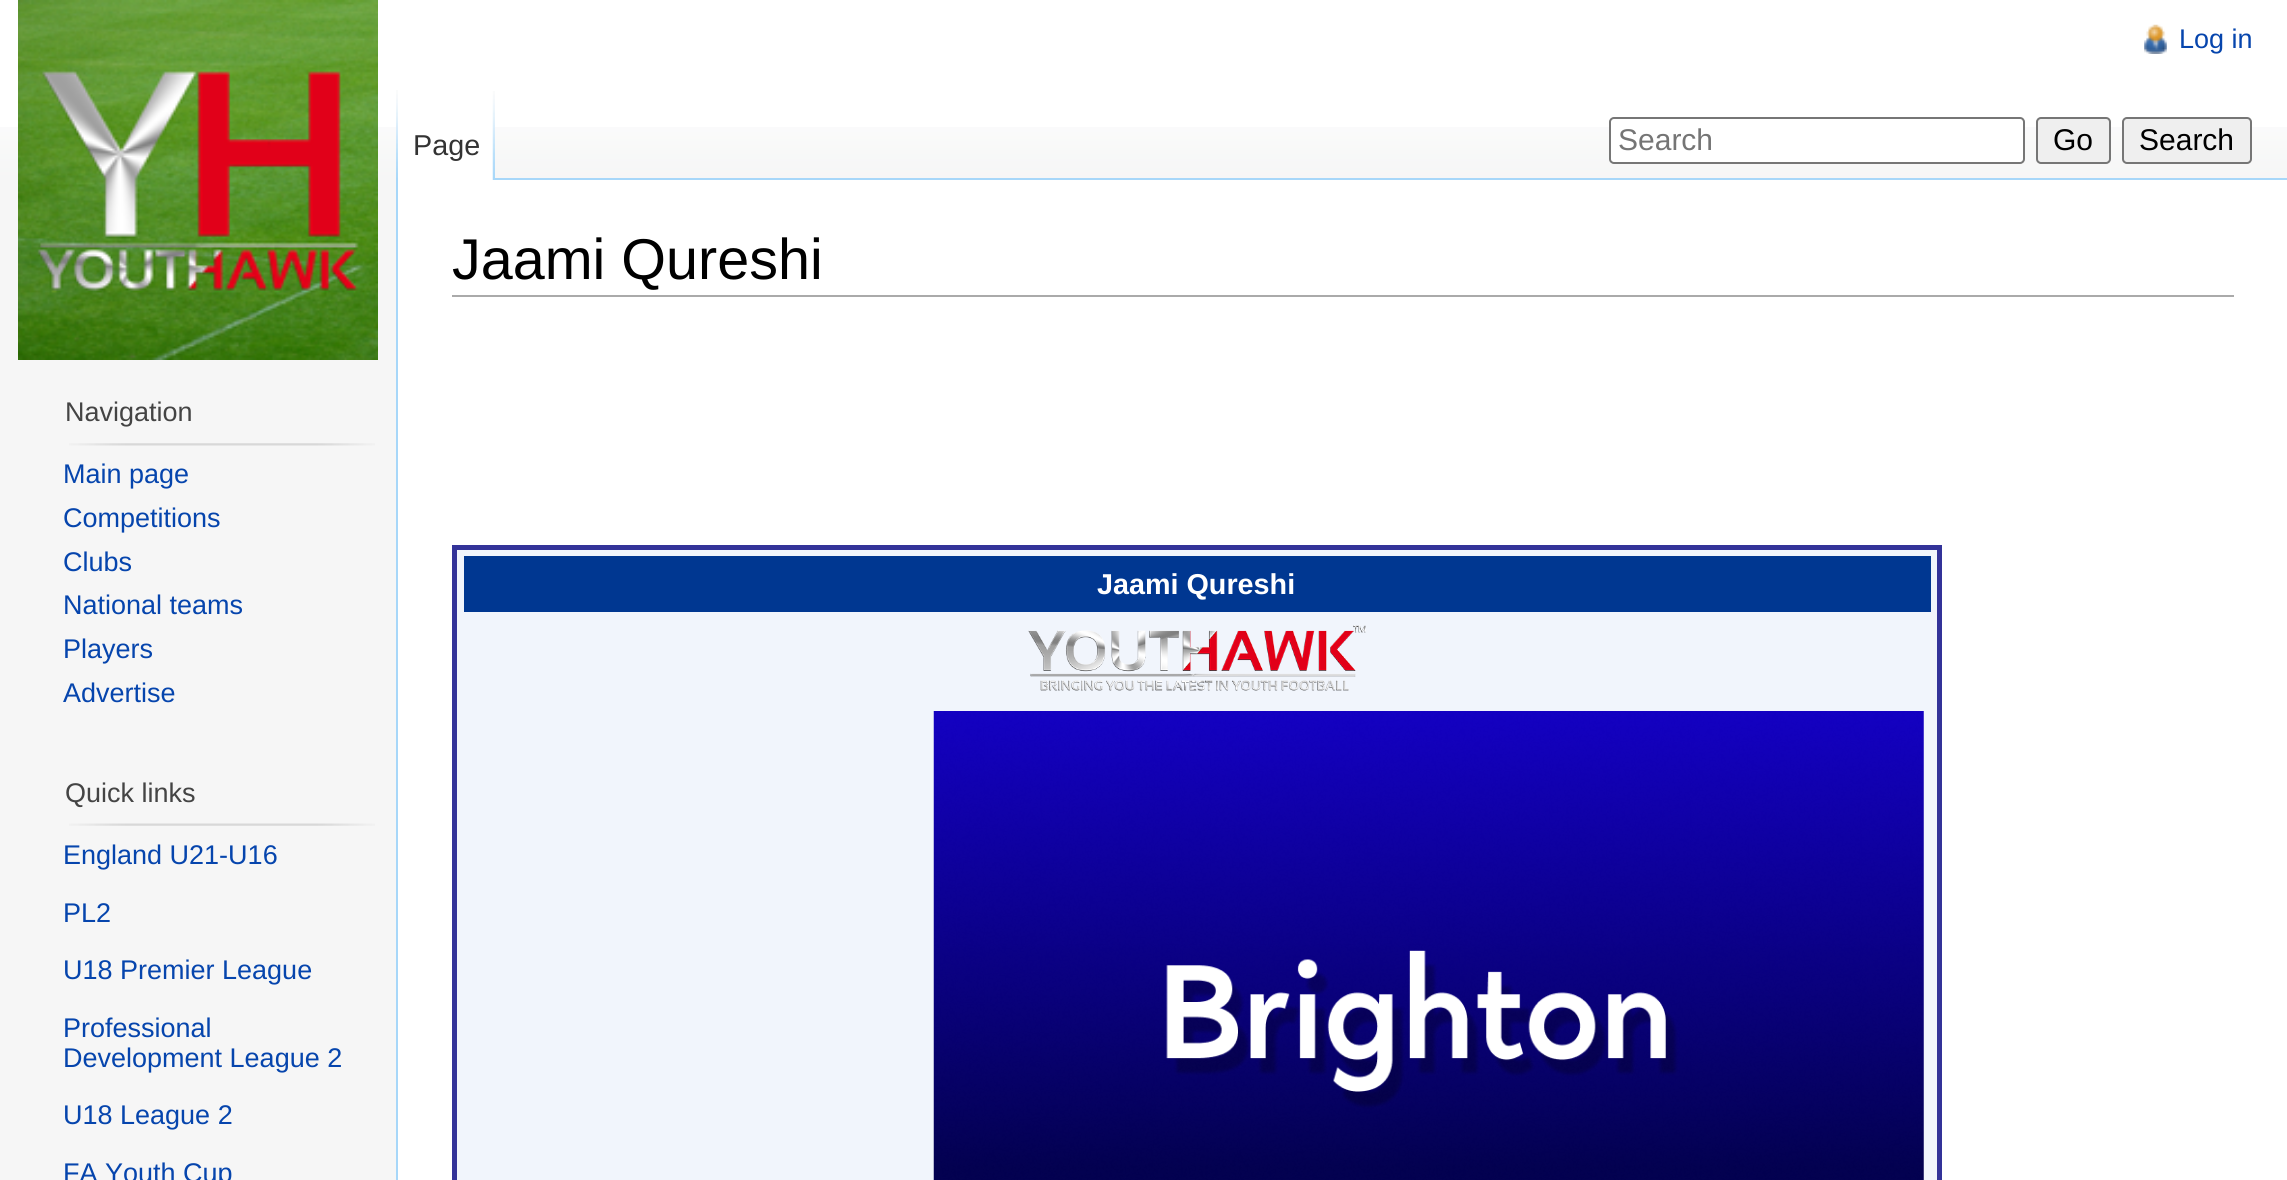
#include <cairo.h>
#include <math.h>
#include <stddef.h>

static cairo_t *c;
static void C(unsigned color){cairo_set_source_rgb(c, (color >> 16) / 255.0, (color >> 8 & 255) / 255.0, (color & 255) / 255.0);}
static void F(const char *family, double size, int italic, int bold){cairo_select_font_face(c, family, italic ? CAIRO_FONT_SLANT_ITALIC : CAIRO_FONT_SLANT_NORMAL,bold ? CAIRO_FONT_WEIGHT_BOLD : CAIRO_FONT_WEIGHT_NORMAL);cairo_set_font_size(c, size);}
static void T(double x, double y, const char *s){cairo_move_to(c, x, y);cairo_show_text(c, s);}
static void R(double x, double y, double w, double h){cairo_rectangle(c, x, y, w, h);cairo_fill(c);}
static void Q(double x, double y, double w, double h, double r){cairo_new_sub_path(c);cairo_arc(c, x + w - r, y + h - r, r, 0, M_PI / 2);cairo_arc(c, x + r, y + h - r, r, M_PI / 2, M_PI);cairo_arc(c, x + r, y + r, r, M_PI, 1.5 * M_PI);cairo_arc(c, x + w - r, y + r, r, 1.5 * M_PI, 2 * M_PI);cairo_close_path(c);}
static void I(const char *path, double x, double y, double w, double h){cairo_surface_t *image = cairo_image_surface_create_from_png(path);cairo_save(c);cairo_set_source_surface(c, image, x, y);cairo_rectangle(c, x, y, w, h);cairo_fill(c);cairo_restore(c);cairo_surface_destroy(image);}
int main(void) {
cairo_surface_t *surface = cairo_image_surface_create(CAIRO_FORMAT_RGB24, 2287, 1180);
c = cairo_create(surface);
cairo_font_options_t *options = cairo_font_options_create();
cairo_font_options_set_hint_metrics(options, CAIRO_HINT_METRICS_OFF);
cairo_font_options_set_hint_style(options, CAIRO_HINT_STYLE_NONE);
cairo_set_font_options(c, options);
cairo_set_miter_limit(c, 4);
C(0xf6f6f6);
cairo_paint(c);
C(0xffffff);
R(0,0,2287,127);
I("1.png",0,127,2287,53);
I("2.png",2144,24,23,30);
F("Liberation Sans",27,0,0);
C(0x0645ad);
T(2179,48,"Log in");
I("3.png",396,90,2,88);
C(0xffffff);
R(398,127,97,53);
I("4.png",492,91,3,89);
F("Liberation Sans",28.75,0,0);
C(0x333333);
T(413,155,"Page");
C(0xffffff);
Q(1610,118,414,45,4);
cairo_fill_preserve(c);
C(0x767676);
cairo_stroke(c);
F("Liberation Sans",30,0,0);
C(0x757575);
T(1618,150,"Search");
C(0xefefef);
Q(2037,118,73,45,4);
cairo_fill_preserve(c);
C(0x767676);
cairo_stroke(c);
C(0x000000);
T(2053,150,"Go");
C(0xefefef);
Q(2123,118,128,45,4);
cairo_fill_preserve(c);
C(0x767676);
cairo_stroke(c);
C(0x000000);
T(2139,150,"Search");
I("5.png",18,0,360,360);
F("Liberation Sans",27,0,0);
C(0x444444);
T(65,421,"Navigation");
I("6.png",69,443,306,3);
C(0x0645ad);
T(63,483,"Main page");
T(63,527,"Competitions");
T(63,571,"Clubs");
T(63,614,"National teams");
T(63,658,"Players");
T(63,702,"Advertise");
C(0x444444);
T(65,802,"Quick links");
I("7.png",69,823,306,3);
C(0x0645ad);
T(63,864,"England U21-U16");
T(63,922,"PL2");
T(63,979,"U18 Premier League");
T(63,1037,"Professional");
T(63,1067,"Development League 2");
T(63,1124,"U18 League 2");
T(63,1182,"FA Youth Cup");
C(0xffffff);
R(398,180,1889,1000);
C(0xa7d7f9);
R(495,178,1792,2);
R(396,178,2,1002);
C(0xaaaaaa);
R(452,295,1782,2);
F("Liberation Sans",57.5,0,0);
C(0x000000);
T(452,279,"Jaami Qureshi");
C(0xf1f5fc);
cairo_rectangle(c,454.5,547.5,1485,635);
cairo_fill_preserve(c);
C(0x333399);
cairo_set_line_width(c,5);
cairo_stroke(c);
C(0x003791);
R(464,556,1467,56);
F("Liberation Sans",28.75,0,1);
C(0xffffff);
T(1097,594,"Jaami Qureshi");
I("8.png",1028,625,338,66);
I("9.png",933,711,991,469);
cairo_surface_write_to_png(surface, "o.png");
cairo_font_options_destroy(options);
cairo_destroy(c);
cairo_surface_destroy(surface);
return 0;
}
